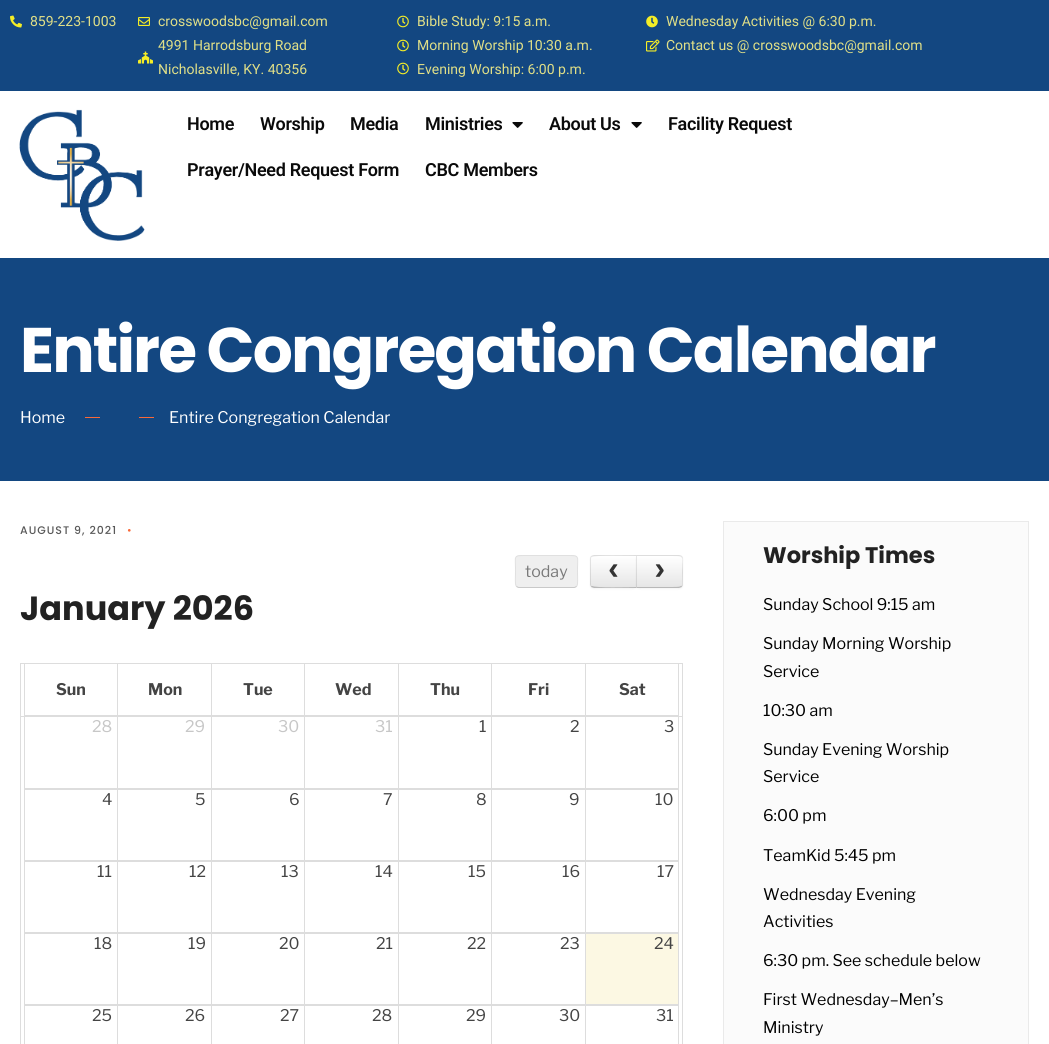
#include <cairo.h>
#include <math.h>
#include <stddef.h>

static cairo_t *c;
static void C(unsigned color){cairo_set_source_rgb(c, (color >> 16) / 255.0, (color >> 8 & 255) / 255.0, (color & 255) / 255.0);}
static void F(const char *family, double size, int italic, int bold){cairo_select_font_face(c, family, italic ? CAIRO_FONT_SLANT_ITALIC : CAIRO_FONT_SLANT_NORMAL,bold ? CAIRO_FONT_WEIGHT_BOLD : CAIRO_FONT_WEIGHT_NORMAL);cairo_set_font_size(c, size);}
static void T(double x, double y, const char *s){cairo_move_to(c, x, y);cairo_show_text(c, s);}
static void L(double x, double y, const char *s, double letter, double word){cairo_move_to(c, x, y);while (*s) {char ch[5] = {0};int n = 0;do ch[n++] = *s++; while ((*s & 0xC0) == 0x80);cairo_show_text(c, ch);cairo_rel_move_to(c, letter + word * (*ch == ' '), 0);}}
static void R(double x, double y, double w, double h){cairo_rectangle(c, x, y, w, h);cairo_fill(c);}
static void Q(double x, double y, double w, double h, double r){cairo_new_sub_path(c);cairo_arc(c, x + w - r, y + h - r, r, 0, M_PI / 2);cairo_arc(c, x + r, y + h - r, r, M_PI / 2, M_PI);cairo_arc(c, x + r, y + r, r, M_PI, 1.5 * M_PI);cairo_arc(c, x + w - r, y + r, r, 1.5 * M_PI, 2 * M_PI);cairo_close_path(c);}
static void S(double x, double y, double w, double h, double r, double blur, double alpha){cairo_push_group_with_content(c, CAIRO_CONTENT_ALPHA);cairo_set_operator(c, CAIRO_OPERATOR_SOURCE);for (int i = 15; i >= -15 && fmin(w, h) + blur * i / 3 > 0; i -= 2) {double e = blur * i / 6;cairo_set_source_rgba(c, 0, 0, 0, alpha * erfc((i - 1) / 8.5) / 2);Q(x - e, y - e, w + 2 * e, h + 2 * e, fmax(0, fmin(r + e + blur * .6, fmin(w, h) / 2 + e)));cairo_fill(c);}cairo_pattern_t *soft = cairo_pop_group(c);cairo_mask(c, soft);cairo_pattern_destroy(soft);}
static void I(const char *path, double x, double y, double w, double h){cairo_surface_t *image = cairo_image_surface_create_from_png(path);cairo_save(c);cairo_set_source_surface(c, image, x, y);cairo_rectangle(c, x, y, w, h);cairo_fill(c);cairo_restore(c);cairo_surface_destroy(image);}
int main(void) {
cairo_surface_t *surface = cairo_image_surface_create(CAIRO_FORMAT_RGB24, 1049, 1044);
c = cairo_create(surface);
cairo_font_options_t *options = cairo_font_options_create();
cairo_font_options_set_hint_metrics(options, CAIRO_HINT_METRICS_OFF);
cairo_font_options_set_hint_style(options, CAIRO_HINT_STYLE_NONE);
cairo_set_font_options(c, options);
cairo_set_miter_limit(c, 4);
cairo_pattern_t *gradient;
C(0xffffff);
cairo_paint(c);
C(0x134781);
R(0,0,1049,91);
I("1.png",10,15,12,13);
F("Roboto",14,0,0);
C(0xe0df87);
T(30,26,"859-223-1003");
I("2.png",138,17,12,9);
T(158,26,"crosswoodsbc@gmail.com");
I("3.png",138,51,15,13);
T(158,50,"4991 Harrodsburg Road");
T(158,74,"Nicholasville, KY. 40356");
I("4.png",397,15,12,13);
T(417,26,"Bible Study: 9:15 a.m.");
I("4.png",397,39,12,13);
T(417,50,"Morning Worship 10:30 a.m.");
I("4.png",397,62,12,13);
T(417,74,"Evening Worship: 6:00 p.m.");
I("5.png",646,15,12,13);
T(666,26,"Wednesday Activities @ 6:30 p.m.");
I("6.png",646,39,14,13);
T(666,50,"Contact us @ crosswoodsbc@gmail.com");
I("7.png",19,109,126,132);
F("Roboto SemiBold",18,0,0);
C(0x0a0a0a);
L(187,130,"Home",-.3,0);
L(260,130,"Worship",-.3,0);
L(350,130,"Media",-.3,0);
L(425,130,"Ministries",-.3,0);
I("8.png",512,122,11,6);
L(549,130,"About Us",-.3,0);
I("8.png",631,122,11,6);
L(668,130,"Facility Request",-.3,0);
L(187,176,"Prayer/Need Request Form",-.3,0);
L(425,176,"CBC Members",-.3,0);
C(0x134781);
R(0,258,1049,223);
F("Poppins",63,0,1);
C(0xffffff);
L(20,372,"Entire Congregation Calendar",-1.9,0);
F("Libre Franklin",16,0,0);
T(20,423,"Home");
C(0xf96939);
R(85,417,15,1);
R(139,417,15,1);
C(0xffffff);
T(169,423,"Entire Congregation Calendar");
F("Poppins Medium",11,0,0);
C(0x595959);
L(20,534,"AUGUST 9, 2021",1,0);
F("Poppins",11,0,0);
C(0xf96939);
L(127,534,"•",1,0);
C(0xefefef);
Q(515,555,63,33,4);
cairo_fill(c);
cairo_new_path(c);
cairo_move_to(c,576.5,586.5);
cairo_line_to(c,574.5,587.5);
cairo_line_to(c,518.5,587.5);
cairo_line_to(c,516.5,586.5);
cairo_set_source_rgba(c,0.349,0.349,0.349,0.25);
cairo_set_line_width(c,1);
cairo_stroke(c);
cairo_new_path(c);
cairo_move_to(c,516.5,586.5);
cairo_curve_to(c,514.5,584.5,515.5,574.5,515.5,571.5);
cairo_curve_to(c,515.5,555,512,555.5,528,555.5);
cairo_line_to(c,565,555.5);
cairo_curve_to(c,581,555.5,577.5,555,577.5,571.5);
cairo_curve_to(c,577.5,574.5,578.5,584.5,576.5,586.5);
cairo_set_source_rgba(c,0.349,0.349,0.349,0.1);
cairo_stroke(c);
F("Libre Franklin",16,0,0);
C(0x7a7a7a);
T(525,577,"today");
C(0x000000);
S(590,556,47,33,4,1,.05);
C(0xf5f5f5);
cairo_new_path(c);
cairo_move_to(c,594,555);
cairo_line_to(c,637,555);
cairo_line_to(c,637,588);
cairo_line_to(c,594,588);
cairo_curve_to(c,592,588,590,586,590,584);
cairo_line_to(c,590,559);
cairo_curve_to(c,590,557,592,555,594,555);
cairo_close_path(c);
cairo_fill(c);
cairo_save(c);
cairo_new_path(c);
cairo_move_to(c,594,555);
cairo_line_to(c,637,555);
cairo_line_to(c,637,588);
cairo_line_to(c,594,588);
cairo_curve_to(c,592,588,590,586,590,584);
cairo_line_to(c,590,559);
cairo_curve_to(c,590,557,592,555,594,555);
cairo_close_path(c);
cairo_clip(c);
gradient = cairo_pattern_create_linear(614,556,614,587);
cairo_pattern_add_color_stop_rgba(gradient,0,1,1,1,1);
cairo_pattern_add_color_stop_rgba(gradient,1,0.902,0.902,0.902,1);
cairo_set_source(c,gradient);
cairo_pattern_destroy(gradient);
R(590,556,46,31);
cairo_restore(c);
cairo_set_source_rgba(c,0,0,0,0.1);
cairo_new_path(c);
cairo_move_to(c,594,555);
cairo_line_to(c,591,556);
cairo_line_to(c,592,557);
cairo_curve_to(c,594,555,631,556,636,556);
cairo_line_to(c,637,555);
cairo_close_path(c);
cairo_fill(c);
cairo_set_source_rgba(c,0,0,0,0.25);
cairo_new_path(c);
cairo_move_to(c,637,588);
cairo_line_to(c,636,587);
cairo_curve_to(c,631,587,594,588,592,586);
cairo_line_to(c,591,587);
cairo_line_to(c,594,588);
cairo_close_path(c);
cairo_fill(c);
cairo_set_source_rgba(c,0,0,0,0.1);
cairo_new_path(c);
cairo_move_to(c,590,559);
cairo_line_to(c,590,584);
cairo_curve_to(c,590,585,590.5,586,591,587);
cairo_line_to(c,592,586);
cairo_curve_to(c,591,586,591,585,591,584);
cairo_line_to(c,591,559);
cairo_curve_to(c,591,558,591,557,592,557);
cairo_line_to(c,591,556);
cairo_curve_to(c,590.5,557,590,558,590,559);
cairo_close_path(c);
cairo_fill(c);
F("Liberation Mono",32,0,1);
C(0x333333);
T(604,579,"‹");
C(0x000000);
S(636,556,47,33,4,1,.05);
C(0xf5f5f5);
cairo_new_path(c);
cairo_move_to(c,636,555);
cairo_line_to(c,679,555);
cairo_curve_to(c,681,555,683,557,683,559);
cairo_line_to(c,683,584);
cairo_curve_to(c,683,586,681,588,679,588);
cairo_line_to(c,636,588);
cairo_close_path(c);
cairo_fill(c);
cairo_save(c);
cairo_new_path(c);
cairo_move_to(c,636,555);
cairo_line_to(c,679,555);
cairo_curve_to(c,681,555,683,557,683,559);
cairo_line_to(c,683,584);
cairo_curve_to(c,683,586,681,588,679,588);
cairo_line_to(c,636,588);
cairo_close_path(c);
cairo_clip(c);
gradient = cairo_pattern_create_linear(660,556,660,587);
cairo_pattern_add_color_stop_rgba(gradient,0,1,1,1,1);
cairo_pattern_add_color_stop_rgba(gradient,1,0.902,0.902,0.902,1);
cairo_set_source(c,gradient);
cairo_pattern_destroy(gradient);
R(636,556,47,31);
cairo_restore(c);
cairo_set_source_rgba(c,0,0,0,0.1);
cairo_new_path(c);
cairo_move_to(c,636,555);
cairo_line_to(c,637,556);
cairo_line_to(c,672,556);
cairo_curve_to(c,677,556,680,556,681,557);
cairo_line_to(c,682,556);
cairo_line_to(c,679,555);
cairo_close_path(c);
cairo_fill(c);
cairo_new_path(c);
cairo_move_to(c,683,584);
cairo_line_to(c,683,559);
cairo_curve_to(c,683,558,682.5,557,682,556);
cairo_line_to(c,681,557);
cairo_curve_to(c,682,557.5,682.5,558.5,682.5,559.5);
cairo_line_to(c,682,572);
cairo_line_to(c,682.5,584);
cairo_curve_to(c,682.5,585,682,585.5,681,586);
cairo_line_to(c,682,587);
cairo_curve_to(c,682.5,586,683,585,683,584);
cairo_close_path(c);
cairo_fill(c);
cairo_set_source_rgba(c,0,0,0,0.25);
cairo_new_path(c);
cairo_move_to(c,679,588);
cairo_line_to(c,682,587);
cairo_line_to(c,681,586);
cairo_curve_to(c,680,587,677,587,672,587);
cairo_line_to(c,637,587);
cairo_line_to(c,636,588);
cairo_close_path(c);
cairo_fill(c);
cairo_set_source_rgba(c,0,0,0,0.1);
cairo_new_path(c);
cairo_move_to(c,636,555);
cairo_line_to(c,636,588);
cairo_line_to(c,637,587);
cairo_line_to(c,637,556);
cairo_close_path(c);
cairo_fill(c);
C(0x333333);
T(650,579,"›");
F("Poppins",33.5,0,1);
C(0x222222);
T(20,620,"January 2026");
C(0xdddddd);
R(20,663,663,1);
R(20,716,663,1);
R(682,716,1,328);
R(682,663,1,54);
R(20,716,1,328);
R(20,663,1,54);
R(678,663,1,53);
R(585,715,94,1);
R(585,663,1,53);
R(491,715,95,1);
R(491,663,1,53);
R(398,715,94,1);
R(398,663,1,53);
R(304,715,95,1);
R(304,663,1,53);
R(211,715,94,1);
R(211,663,1,53);
R(117,715,95,1);
R(117,663,1,53);
R(24,715,94,1);
R(24,663,1,53);
F("Libre Franklin",16,0,1);
C(0x444444);
T(56,695,"Sun");
T(148,695,"Mon");
T(243,695,"Tue");
T(335,695,"Wed");
T(430,695,"Thu");
T(528,695,"Fri");
T(619,695,"Sat");
C(0xdddddd);
R(678,717,1,72);
R(585,788,94,2);
R(585,717,1,72);
R(491,788,95,1);
R(491,717,1,72);
R(398,788,94,1);
R(398,717,1,72);
R(304,788,95,1);
R(304,717,1,72);
R(211,788,94,1);
R(211,717,1,72);
R(117,788,95,1);
R(117,717,1,72);
R(24,788,94,1);
R(24,717,1,72);
F("Libre Franklin",16,0,0);
C(0xc7c7c7);
T(92,732,"28");
T(185,732,"29");
T(278,732,"30");
T(375,732,"31");
C(0x444444);
T(479,732,"1");
T(570,732,"2");
T(664,732,"3");
C(0xdddddd);
R(678,789,1,72);
R(585,860,94,2);
R(585,789,1,72);
R(491,789,95,1);
R(491,860,95,1);
R(491,789,1,72);
R(398,789,94,1);
R(398,860,94,1);
R(398,789,1,72);
R(304,789,95,1);
R(304,860,95,1);
R(304,789,1,72);
R(211,789,94,1);
R(211,860,94,1);
R(211,789,1,72);
R(117,789,95,1);
R(117,860,95,1);
R(117,789,1,72);
R(24,789,94,1);
R(24,860,94,1);
R(24,789,1,72);
C(0x444444);
T(102,805,"4");
T(195,805,"5");
T(289,805,"6");
T(383,805,"7");
T(476,805,"8");
T(569,805,"9");
T(655,805,"10");
C(0xdddddd);
R(678,861,1,72);
R(585,932,94,2);
R(585,861,1,72);
R(491,861,95,1);
R(491,932,95,1);
R(491,861,1,72);
R(398,861,94,1);
R(398,932,94,1);
R(398,861,1,72);
R(304,861,95,1);
R(304,932,95,1);
R(304,861,1,72);
R(211,861,94,1);
R(211,932,94,1);
R(211,861,1,72);
R(117,861,95,1);
R(117,932,95,1);
R(117,861,1,72);
R(24,861,94,1);
R(24,932,94,1);
R(24,861,1,72);
C(0x444444);
T(97,877,"11");
T(189,877,"12");
T(281,877,"13");
T(375,877,"14");
T(468,877,"15");
T(562,877,"16");
T(657,877,"17");
C(0xdddddd);
R(678,933,1,72);
R(585,1004,94,2);
R(585,933,1,111);
R(491,933,95,1);
R(491,1004,95,2);
R(491,933,1,111);
R(398,933,94,1);
R(398,1004,94,2);
R(398,933,1,111);
R(304,933,95,1);
R(304,1004,95,2);
R(304,933,1,111);
R(211,933,94,1);
R(211,1004,94,2);
R(211,933,1,111);
R(117,933,95,1);
R(117,1004,95,2);
R(117,933,1,111);
R(24,933,94,1);
R(24,1004,94,2);
R(24,933,1,111);
C(0xfcf8e3);
R(586,934,92,70);
C(0x444444);
T(94,949,"18");
T(188,949,"19");
T(279,949,"20");
T(376,949,"21");
T(467,949,"22");
T(560,949,"23");
T(654,949,"24");
T(92,1021,"25");
T(185,1021,"26");
T(280,1021,"27");
T(372,1021,"28");
T(466,1021,"29");
T(559,1021,"30");
T(656,1021,"31");
C(0xdddddd);
R(678,1005,1,39);
C(0xfbfbfb);
cairo_rectangle(c,723.5,521.5,305,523);
cairo_fill_preserve(c);
C(0xeaeaea);
cairo_stroke(c);
F("Poppins",22.5,0,1);
C(0x222222);
T(763,563,"Worship Times");
F("Libre Franklin",16,0,0);
C(0x000000);
T(763,610,"Sunday School 9:15 am");
T(763,649,"Sunday Morning Worship");
T(763,677,"Service");
T(763,716,"10:30 am");
T(763,755,"Sunday Evening Worship");
T(763,782,"Service");
T(763,821,"6:00 pm");
T(763,861,"TeamKid 5:45 pm");
T(763,900,"Wednesday Evening");
T(763,927,"Activities");
T(763,966,"6:30 pm. See schedule below");
T(763,1005,"First Wednesday–Men’s");
T(763,1033,"Ministry");
cairo_surface_write_to_png(surface, "o.png");
cairo_font_options_destroy(options);
cairo_destroy(c);
cairo_surface_destroy(surface);
return 0;
}
